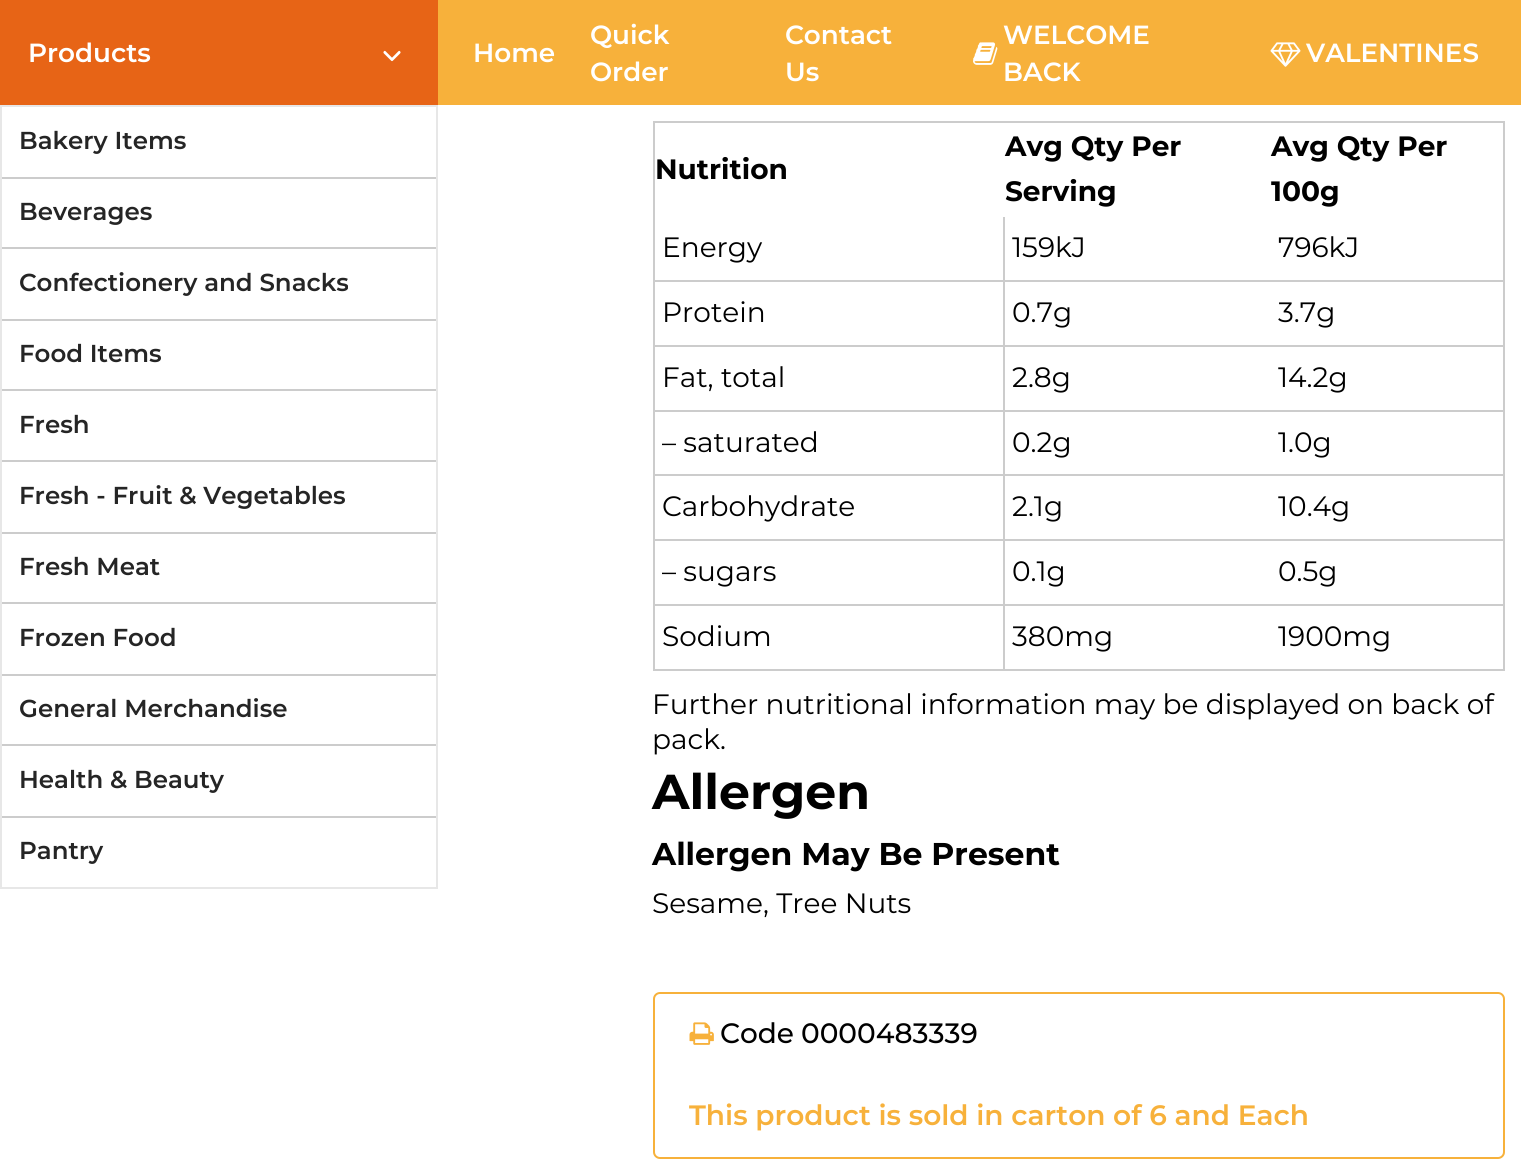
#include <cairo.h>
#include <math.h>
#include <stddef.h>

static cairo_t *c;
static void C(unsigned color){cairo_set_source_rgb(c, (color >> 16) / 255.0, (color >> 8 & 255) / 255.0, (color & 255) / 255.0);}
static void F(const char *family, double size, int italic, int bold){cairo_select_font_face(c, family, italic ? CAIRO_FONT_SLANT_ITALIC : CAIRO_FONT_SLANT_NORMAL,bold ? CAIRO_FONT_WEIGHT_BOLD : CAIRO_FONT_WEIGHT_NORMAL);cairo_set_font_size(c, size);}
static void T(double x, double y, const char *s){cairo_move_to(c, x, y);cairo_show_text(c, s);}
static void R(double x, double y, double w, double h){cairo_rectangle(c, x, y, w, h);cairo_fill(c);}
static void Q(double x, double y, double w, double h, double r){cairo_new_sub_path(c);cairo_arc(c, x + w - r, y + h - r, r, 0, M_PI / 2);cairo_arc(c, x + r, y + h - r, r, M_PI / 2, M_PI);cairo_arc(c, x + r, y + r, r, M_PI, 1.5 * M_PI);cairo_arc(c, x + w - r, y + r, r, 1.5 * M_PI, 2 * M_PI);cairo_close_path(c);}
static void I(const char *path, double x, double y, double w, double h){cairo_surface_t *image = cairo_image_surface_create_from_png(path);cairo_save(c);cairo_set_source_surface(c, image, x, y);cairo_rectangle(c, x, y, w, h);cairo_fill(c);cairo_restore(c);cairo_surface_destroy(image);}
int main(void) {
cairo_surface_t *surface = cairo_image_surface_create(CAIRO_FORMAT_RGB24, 1521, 1159);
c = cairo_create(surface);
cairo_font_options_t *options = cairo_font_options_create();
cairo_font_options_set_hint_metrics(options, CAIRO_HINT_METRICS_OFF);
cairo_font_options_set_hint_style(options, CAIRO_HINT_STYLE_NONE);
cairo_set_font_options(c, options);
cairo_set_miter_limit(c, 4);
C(0xffffff);
cairo_paint(c);
C(0xf7b13b);
R(438,0,1083,105);
C(0xe76416);
R(0,0,438,105);
F("Montserrat SemiBold",26.25,0,0);
C(0xffffff);
T(28,62,"Products");
I("1.png",383,50,18,12);
cairo_rectangle(c,1,106,436,782);
C(0xe7e7e7);
cairo_stroke(c);
F("Montserrat SemiBold",24.5,0,0);
C(0x252525);
T(19,149,"Bakery Items");
C(0xcccccc);
R(2,177,434,2);
C(0x252525);
T(19,220,"Beverages");
C(0xcccccc);
R(2,247,434,2);
C(0x252525);
T(19,291,"Confectionery and Snacks");
C(0xcccccc);
R(2,319,434,2);
C(0x252525);
T(19,362,"Food Items");
C(0xcccccc);
R(2,389,434,2);
C(0x252525);
T(19,433,"Fresh");
C(0xcccccc);
R(2,460,434,2);
C(0x252525);
T(19,504,"Fresh - Fruit & Vegetables");
C(0xcccccc);
R(2,532,434,2);
C(0x252525);
T(19,575,"Fresh Meat");
C(0xcccccc);
R(2,602,434,2);
C(0x252525);
T(19,646,"Frozen Food");
C(0xcccccc);
R(2,674,434,2);
C(0x252525);
T(19,717,"General Merchandise");
C(0xcccccc);
R(2,744,434,2);
C(0x252525);
T(19,788,"Health & Beauty");
C(0xcccccc);
R(2,816,434,2);
C(0x252525);
T(19,859,"Pantry");
F("Montserrat SemiBold",26.25,0,0);
C(0xffffff);
T(473,62,"Home");
T(590,44,"Quick");
T(590,81,"Order");
T(785,44,"Contact");
T(785,81,"Us");
T(1003,44,"WELCOME");
I("2.png",973,42,25,23);
T(1003,81,"BACK");
I("3.png",1270,42,31,25);
T(1306,62,"VALENTINES");
C(0xcccccc);
R(653,121,852,2);
R(1503,121,2,549);
R(653,669,852,2);
R(653,121,2,549);
F("Montserrat",28,0,1);
C(0x000000);
T(655,179,"Nutrition");
T(1005,156,"Avg Qty Per");
T(1005,201,"Serving");
T(1271,156,"Avg Qty Per");
T(1271,201,"100g");
C(0xcccccc);
R(1003,604,2,66);
R(1003,604,502,2);
R(1003,539,2,67);
R(1003,539,502,2);
R(1003,474,2,67);
R(1003,474,502,2);
R(1003,410,2,66);
R(1003,410,502,2);
R(1003,345,2,66);
R(1003,345,502,2);
R(1003,280,2,67);
R(1003,280,502,2);
R(1003,217,2,65);
R(653,280,352,2);
F("Montserrat",28,0,0);
C(0x000000);
T(662,257,"Energy");
T(1012,257,"159kJ");
T(1278,257,"796kJ");
C(0xcccccc);
R(653,345,352,2);
C(0x000000);
T(662,322,"Protein");
T(1012,322,"0.7g");
T(1278,322,"3.7g");
C(0xcccccc);
R(653,410,352,2);
C(0x000000);
T(662,387,"Fat, total");
T(1012,387,"2.8g");
T(1278,387,"14.2g");
C(0xcccccc);
R(653,474,352,2);
C(0x000000);
T(662,452,"– saturated");
T(1012,452,"0.2g");
T(1278,452,"1.0g");
C(0xcccccc);
R(653,539,352,2);
C(0x000000);
T(662,516,"Carbohydrate");
T(1012,516,"2.1g");
T(1278,516,"10.4g");
C(0xcccccc);
R(653,604,352,2);
C(0x000000);
T(662,581,"– sugars");
T(1012,581,"0.1g");
T(1278,581,"0.5g");
T(662,646,"Sodium");
T(1012,646,"380mg");
T(1278,646,"1900mg");
T(652,714,"Further nutritional information may be displayed on back of");
T(652,749,"pack.");
F("Montserrat",49,0,1);
T(652,809,"Allergen");
F("Montserrat",31.5,0,1);
T(652,865,"Allergen May Be Present");
F("Montserrat",28,0,0);
T(652,913,"Sesame, Tree Nuts");
Q(654,993,850,165,6);
C(0xf7b13b);
cairo_stroke(c);
I("4.png",689,1022,25,23);
F("Montserrat Medium",28,0,0);
C(0x000000);
T(720,1043,"Code");
T(801,1043,"0000483339");
F("Montserrat SemiBold",28,0,0);
C(0xf7b13b);
T(689,1125,"This product is sold in carton of 6 and Each");
cairo_surface_write_to_png(surface, "o.png");
cairo_font_options_destroy(options);
cairo_destroy(c);
cairo_surface_destroy(surface);
return 0;
}
